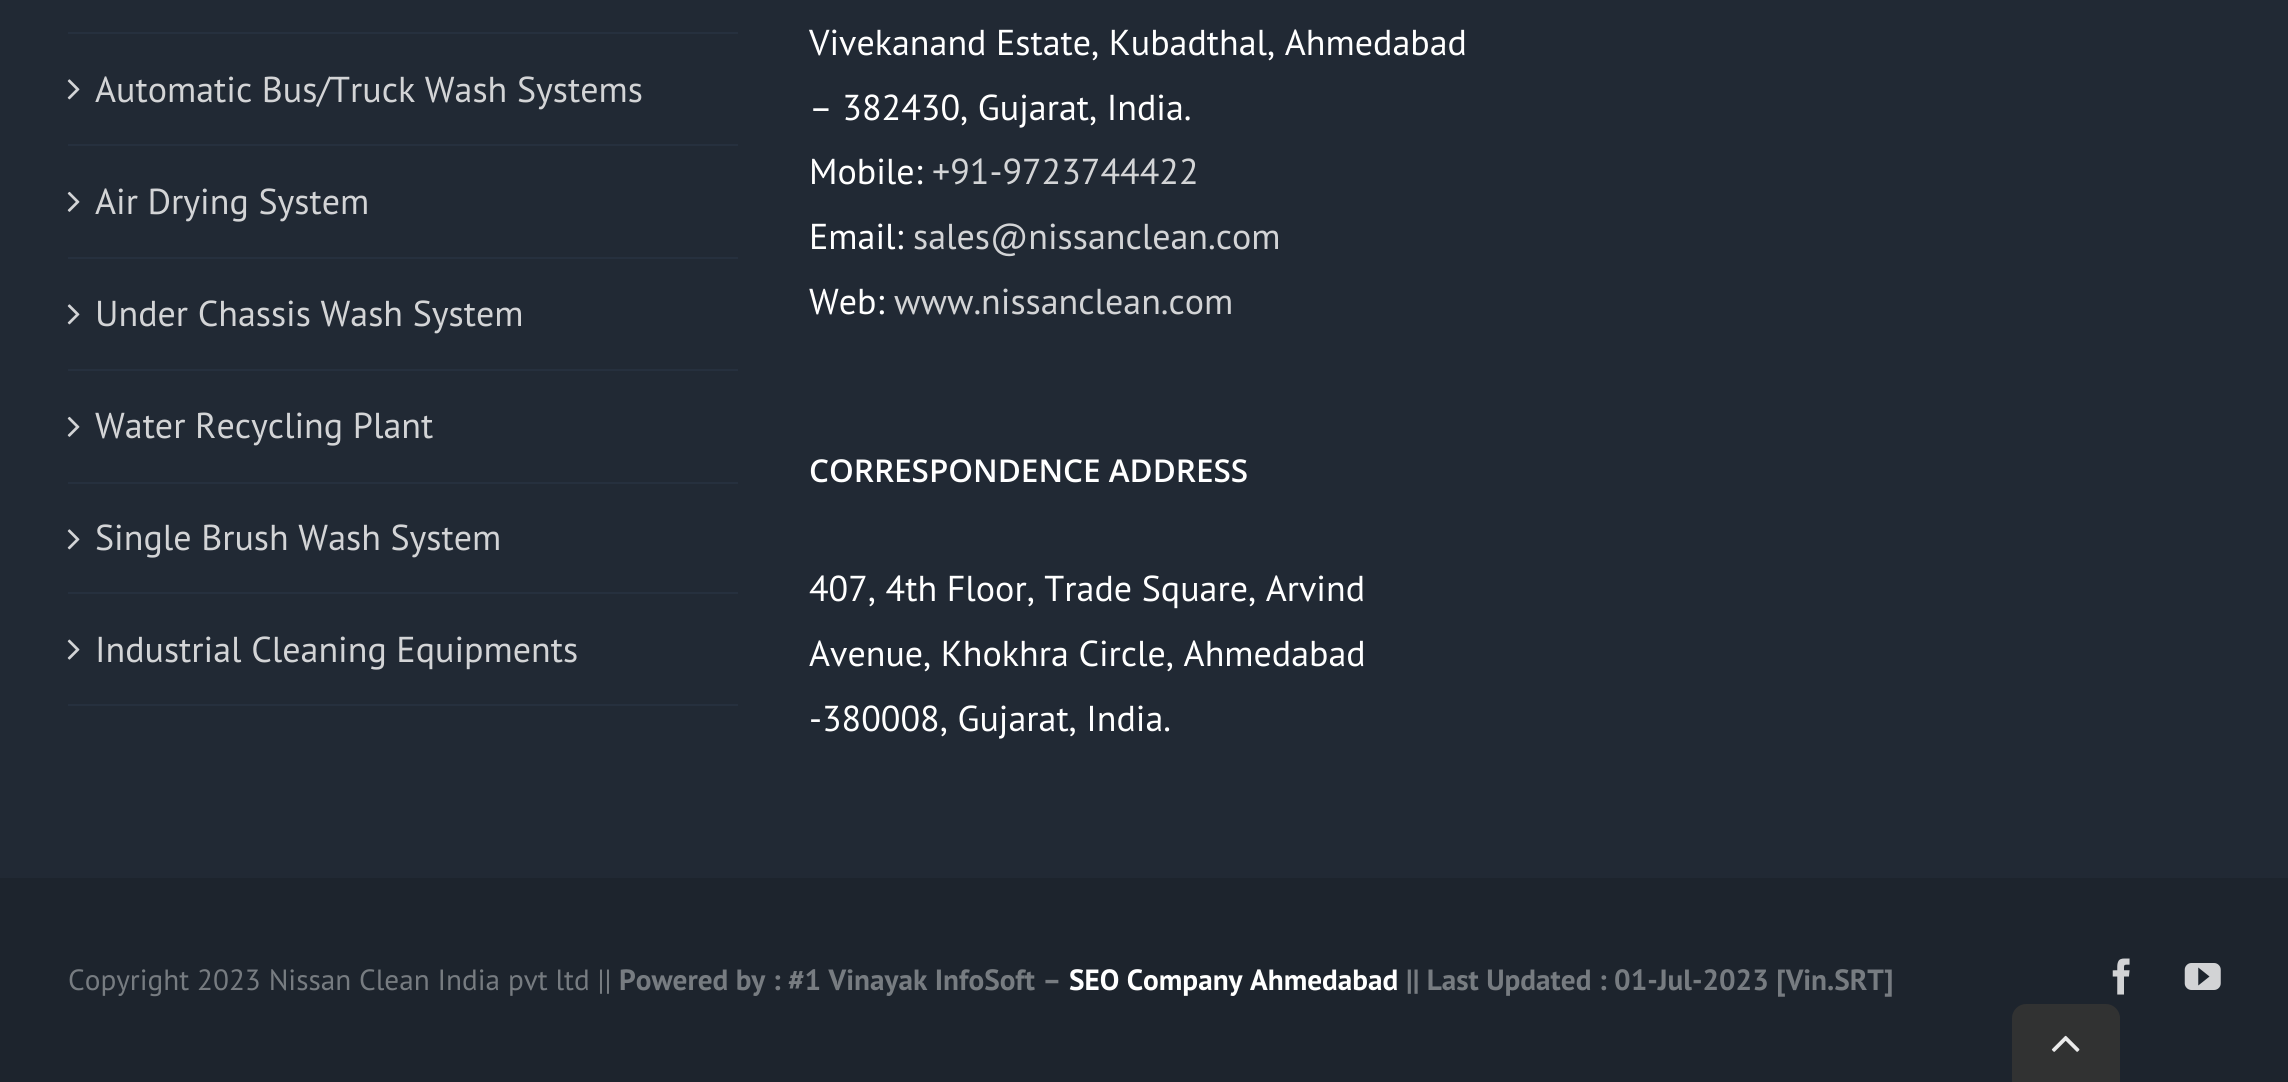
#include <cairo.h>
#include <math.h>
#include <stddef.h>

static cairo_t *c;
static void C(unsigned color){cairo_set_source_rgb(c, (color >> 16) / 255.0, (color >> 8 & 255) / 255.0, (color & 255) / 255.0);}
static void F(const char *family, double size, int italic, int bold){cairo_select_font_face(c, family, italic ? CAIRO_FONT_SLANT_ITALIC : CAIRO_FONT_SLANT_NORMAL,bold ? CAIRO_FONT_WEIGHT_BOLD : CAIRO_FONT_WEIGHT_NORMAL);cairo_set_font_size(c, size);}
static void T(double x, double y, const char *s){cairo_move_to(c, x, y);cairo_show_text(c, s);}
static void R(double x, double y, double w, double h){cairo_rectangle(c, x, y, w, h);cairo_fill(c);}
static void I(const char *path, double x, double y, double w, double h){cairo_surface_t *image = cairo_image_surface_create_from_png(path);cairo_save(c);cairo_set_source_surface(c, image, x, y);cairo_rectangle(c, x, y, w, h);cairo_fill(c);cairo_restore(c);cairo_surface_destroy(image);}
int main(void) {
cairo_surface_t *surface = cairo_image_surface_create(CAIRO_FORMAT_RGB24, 2288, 1082);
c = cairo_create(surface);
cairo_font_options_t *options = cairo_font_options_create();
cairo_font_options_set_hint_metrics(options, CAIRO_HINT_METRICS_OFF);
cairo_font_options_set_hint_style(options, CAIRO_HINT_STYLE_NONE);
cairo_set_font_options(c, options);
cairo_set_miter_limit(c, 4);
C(0x212934);
cairo_paint(c);
C(0x26303e);
R(68,32,670,2);
R(68,144,670,2);
I("1.png",67,79,13,21);
F("PT Sans",36,0,0);
C(0xd3d4d6);
T(95,102,"Automatic Bus/Truck Wash Systems");
C(0x26303e);
R(68,257,670,2);
I("2.png",67,191,13,21);
C(0xd3d4d6);
T(95,214,"Air Drying System");
C(0x26303e);
R(68,369,670,2);
I("1.png",67,304,13,21);
C(0xd3d4d6);
T(95,326,"Under Chassis Wash System");
C(0x26303e);
R(68,482,670,2);
I("2.png",67,416,13,21);
C(0xd3d4d6);
T(95,438,"Water Recycling Plant");
C(0x26303e);
R(68,592,670,2);
I("1.png",67,529,13,21);
C(0xd3d4d6);
T(95,550,"Single Brush Wash System");
C(0x26303e);
R(68,704,670,2);
I("3.png",67,639,13,21);
C(0xd3d4d6);
T(95,662,"Industrial Cleaning Equipments");
C(0xffffff);
T(809,55,"Vivekanand Estate, Kubadthal, Ahmedabad");
T(809,120,"– 382430, Gujarat, India.");
T(809,184,"Mobile:");
C(0xd3d4d6);
T(932,184,"+91-9723744422");
C(0xffffff);
T(809,249,"Email:");
C(0xd3d4d6);
T(913,249,"sales@nissanclean.com");
C(0xffffff);
T(809,314,"Web:");
C(0xd3d4d6);
T(894,314,"www.nissanclean.com");
F("Open Sans SemiBold",31.5,0,0);
C(0xffffff);
T(809,482,"CORRESPONDENCE ADDRESS");
F("PT Sans",36,0,0);
T(809,601,"407, 4th Floor, Trade Square, Arvind");
T(809,666,"Avenue, Khokhra Circle, Ahmedabad");
T(809,731,"-380008, Gujarat, India.");
C(0x1d242d);
R(0,878,2288,204);
F("PT Sans",29.25,0,0);
C(0x777c81);
T(68,990,"Copyright 2023 Nissan Clean India pvt ltd ||");
F("PT Sans",29.25,0,1);
T(619,990,"Powered by : #1 Vinayak InfoSoft –");
C(0xffffff);
T(1069,990,"SEO Company Ahmedabad");
C(0x777c81);
T(1406,990,"|| Last Updated : 01-Jul-2023 [Vin.SRT]");
I("4.png",2112,958,18,37);
I("5.png",2184,963,37,27);
C(0x313232);
cairo_new_path(c);
cairo_move_to(c,2026,1004);
cairo_line_to(c,2106,1004);
cairo_curve_to(c,2113.5,1004,2120,1010.5,2120,1018);
cairo_line_to(c,2120,1082);
cairo_line_to(c,2012,1082);
cairo_line_to(c,2012,1018);
cairo_curve_to(c,2012,1010.5,2018.5,1004,2026,1004);
cairo_close_path(c);
cairo_fill(c);
I("6.png",2051,1035,29,17);
cairo_surface_write_to_png(surface, "o.png");
cairo_font_options_destroy(options);
cairo_destroy(c);
cairo_surface_destroy(surface);
return 0;
}
